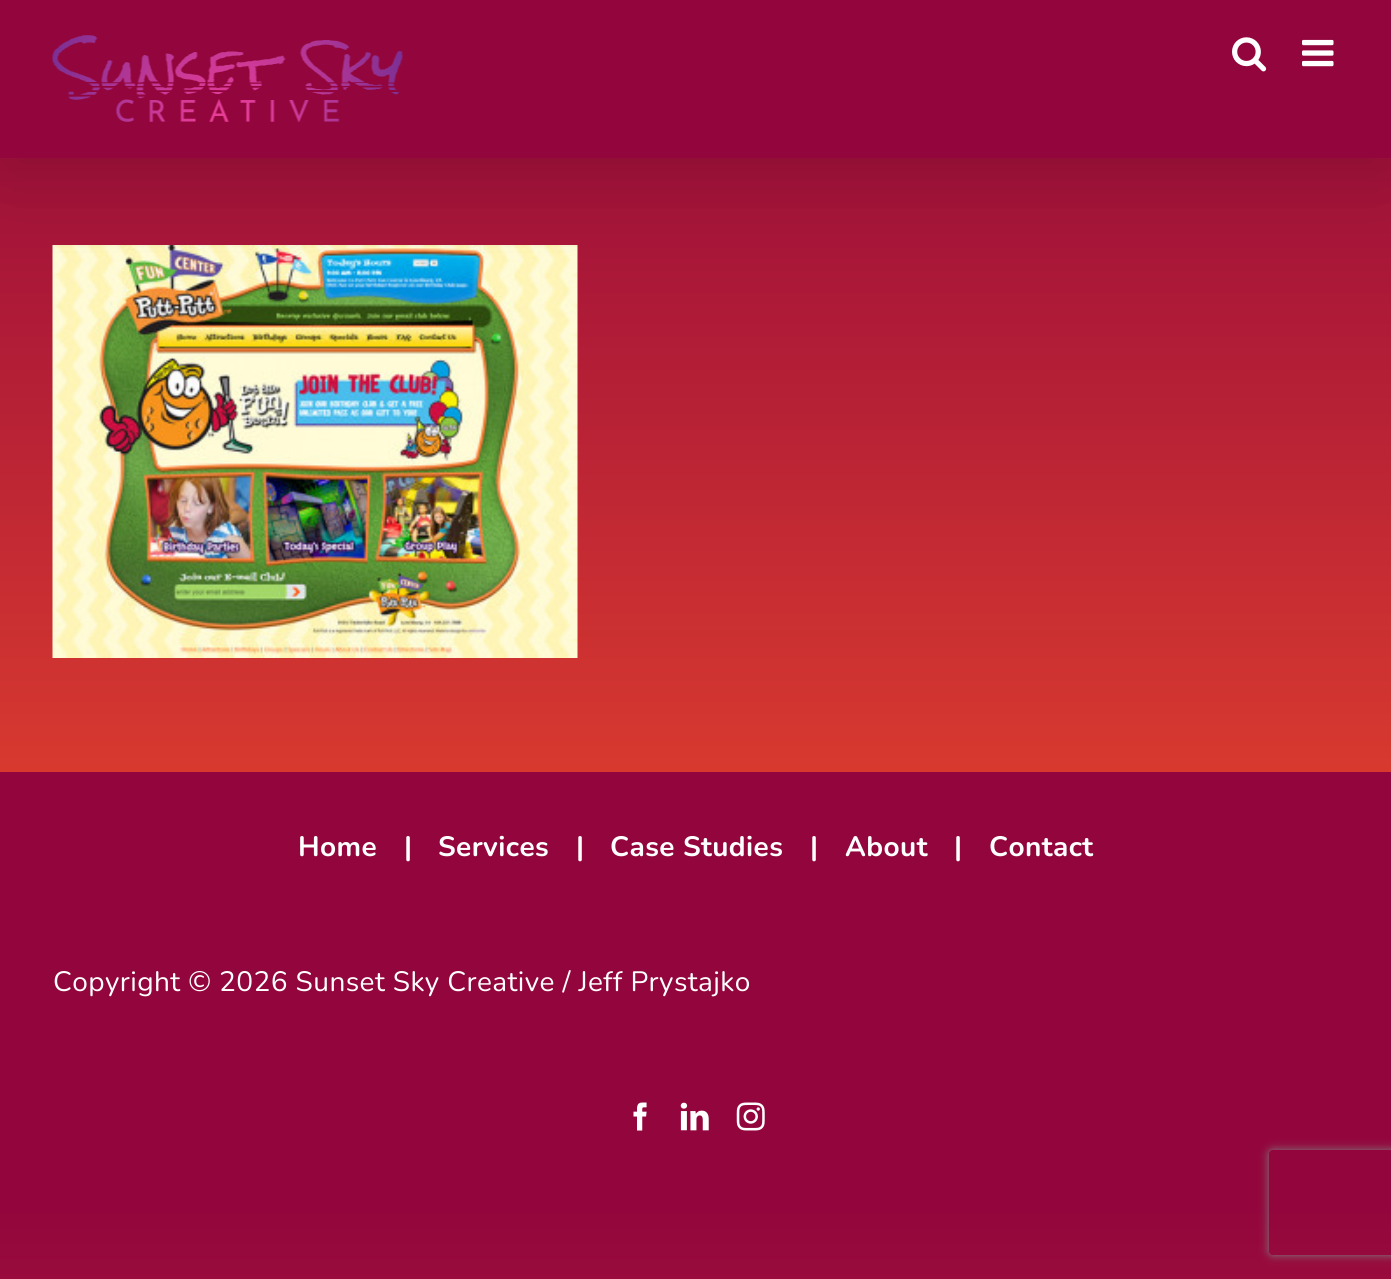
#include <cairo.h>
#include <math.h>
#include <stddef.h>

static cairo_t *c;
static void C(unsigned color){cairo_set_source_rgb(c, (color >> 16) / 255.0, (color >> 8 & 255) / 255.0, (color & 255) / 255.0);}
static void F(const char *family, double size, int italic, int bold){cairo_select_font_face(c, family, italic ? CAIRO_FONT_SLANT_ITALIC : CAIRO_FONT_SLANT_NORMAL,bold ? CAIRO_FONT_WEIGHT_BOLD : CAIRO_FONT_WEIGHT_NORMAL);cairo_set_font_size(c, size);}
static void L(double x, double y, const char *s, double letter, double word){cairo_move_to(c, x, y);while (*s) {char ch[5] = {0};int n = 0;do ch[n++] = *s++; while ((*s & 0xC0) == 0x80);cairo_show_text(c, ch);cairo_rel_move_to(c, letter + word * (*ch == ' '), 0);}}
static void R(double x, double y, double w, double h){cairo_rectangle(c, x, y, w, h);cairo_fill(c);}
static void Q(double x, double y, double w, double h, double r){cairo_new_sub_path(c);cairo_arc(c, x + w - r, y + h - r, r, 0, M_PI / 2);cairo_arc(c, x + r, y + h - r, r, M_PI / 2, M_PI);cairo_arc(c, x + r, y + r, r, M_PI, 1.5 * M_PI);cairo_arc(c, x + w - r, y + r, r, 1.5 * M_PI, 2 * M_PI);cairo_close_path(c);}
static void S(double x, double y, double w, double h, double r, double blur, double alpha){cairo_push_group_with_content(c, CAIRO_CONTENT_ALPHA);cairo_set_operator(c, CAIRO_OPERATOR_SOURCE);for (int i = 15; i >= -15 && fmin(w, h) + blur * i / 3 > 0; i -= 2) {double e = blur * i / 6;cairo_set_source_rgba(c, 0, 0, 0, alpha * erfc((i - 1) / 8.5) / 2);Q(x - e, y - e, w + 2 * e, h + 2 * e, fmax(0, fmin(r + e + blur * .6, fmin(w, h) / 2 + e)));cairo_fill(c);}cairo_pattern_t *soft = cairo_pop_group(c);cairo_mask(c, soft);cairo_pattern_destroy(soft);}
static void I(const char *path, double x, double y, double w, double h){cairo_surface_t *image = cairo_image_surface_create_from_png(path);cairo_save(c);cairo_set_source_surface(c, image, x, y);cairo_rectangle(c, x, y, w, h);cairo_fill(c);cairo_restore(c);cairo_surface_destroy(image);}
int main(void) {
cairo_surface_t *surface = cairo_image_surface_create(CAIRO_FORMAT_RGB24, 1391, 1279);
c = cairo_create(surface);
cairo_font_options_t *options = cairo_font_options_create();
cairo_font_options_set_hint_metrics(options, CAIRO_HINT_METRICS_OFF);
cairo_font_options_set_hint_style(options, CAIRO_HINT_STYLE_NONE);
cairo_set_font_options(c, options);
cairo_set_miter_limit(c, 4);
cairo_pattern_t *gradient;
C(0xffffff);
cairo_paint(c);
gradient = cairo_pattern_create_linear(696,1208,696,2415);
cairo_pattern_add_color_stop_rgba(gradient,0,0.573,0.024,0.239,1);
cairo_pattern_add_color_stop_rgba(gradient,1,1,0.337,0.153,1);
cairo_set_source(c,gradient);
cairo_pattern_destroy(gradient);
R(0,1208,1391,71);
gradient = cairo_pattern_create_linear(696,0,696,1208);
cairo_pattern_add_color_stop_rgba(gradient,0,0.573,0.024,0.239,1);
cairo_pattern_add_color_stop_rgba(gradient,1,1,0.337,0.153,1);
cairo_set_source(c,gradient);
cairo_pattern_destroy(gradient);
R(0,158,1391,614);
I("4.png",52,245,526,413);
C(0x000000);
S(4,21,1384,151,0,44,.14);
C(0x92063d);
R(0,0,1391,158);
I("1.png",52,35,351,87);
I("2.png",1232,37,35,35);
I("3.png",1302,39,32,28);
R(0,772,1391,436);
F("Nunito",28,0,1);
C(0xffffff);
L(298,856,"Home",.42,0);
L(404,856,"|",.42,0);
L(438,856,"Services",.42,0);
L(576,856,"|",.42,0);
L(610,856,"Case Studies",.42,0);
L(810,856,"|",.42,0);
L(845,856,"About",.42,0);
L(954,856,"|",.42,0);
L(989,856,"Contact",.42,0);
F("Nunito",28,0,0);
L(53,991,"Copyright © 2026 Sunset Sky Creative / Jeff Prystajko",.42,0);
I("5.png",633,1102,14,29);
I("6.png",680,1102,29,29);
I("7.png",736,1102,29,29);
cairo_save(c);
cairo_set_fill_rule(c,CAIRO_FILL_RULE_EVEN_ODD);
cairo_new_path(c);
cairo_move_to(c,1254,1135);
cairo_line_to(c,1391,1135);
cairo_line_to(c,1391,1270);
cairo_line_to(c,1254,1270);
cairo_close_path(c);
cairo_move_to(c,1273,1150);
cairo_line_to(c,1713,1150);
cairo_curve_to(c,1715,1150,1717,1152,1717,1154);
cairo_line_to(c,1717,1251);
cairo_curve_to(c,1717,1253,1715,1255,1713,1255);
cairo_line_to(c,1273,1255);
cairo_curve_to(c,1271,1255,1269,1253,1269,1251);
cairo_line_to(c,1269,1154);
cairo_curve_to(c,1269,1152,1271,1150,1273,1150);
cairo_close_path(c);
cairo_clip(c);
C(0x808080);
S(1269,1150,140,105,4,4.5,1);
cairo_restore(c);
cairo_surface_write_to_png(surface, "o.png");
cairo_font_options_destroy(options);
cairo_destroy(c);
cairo_surface_destroy(surface);
return 0;
}
